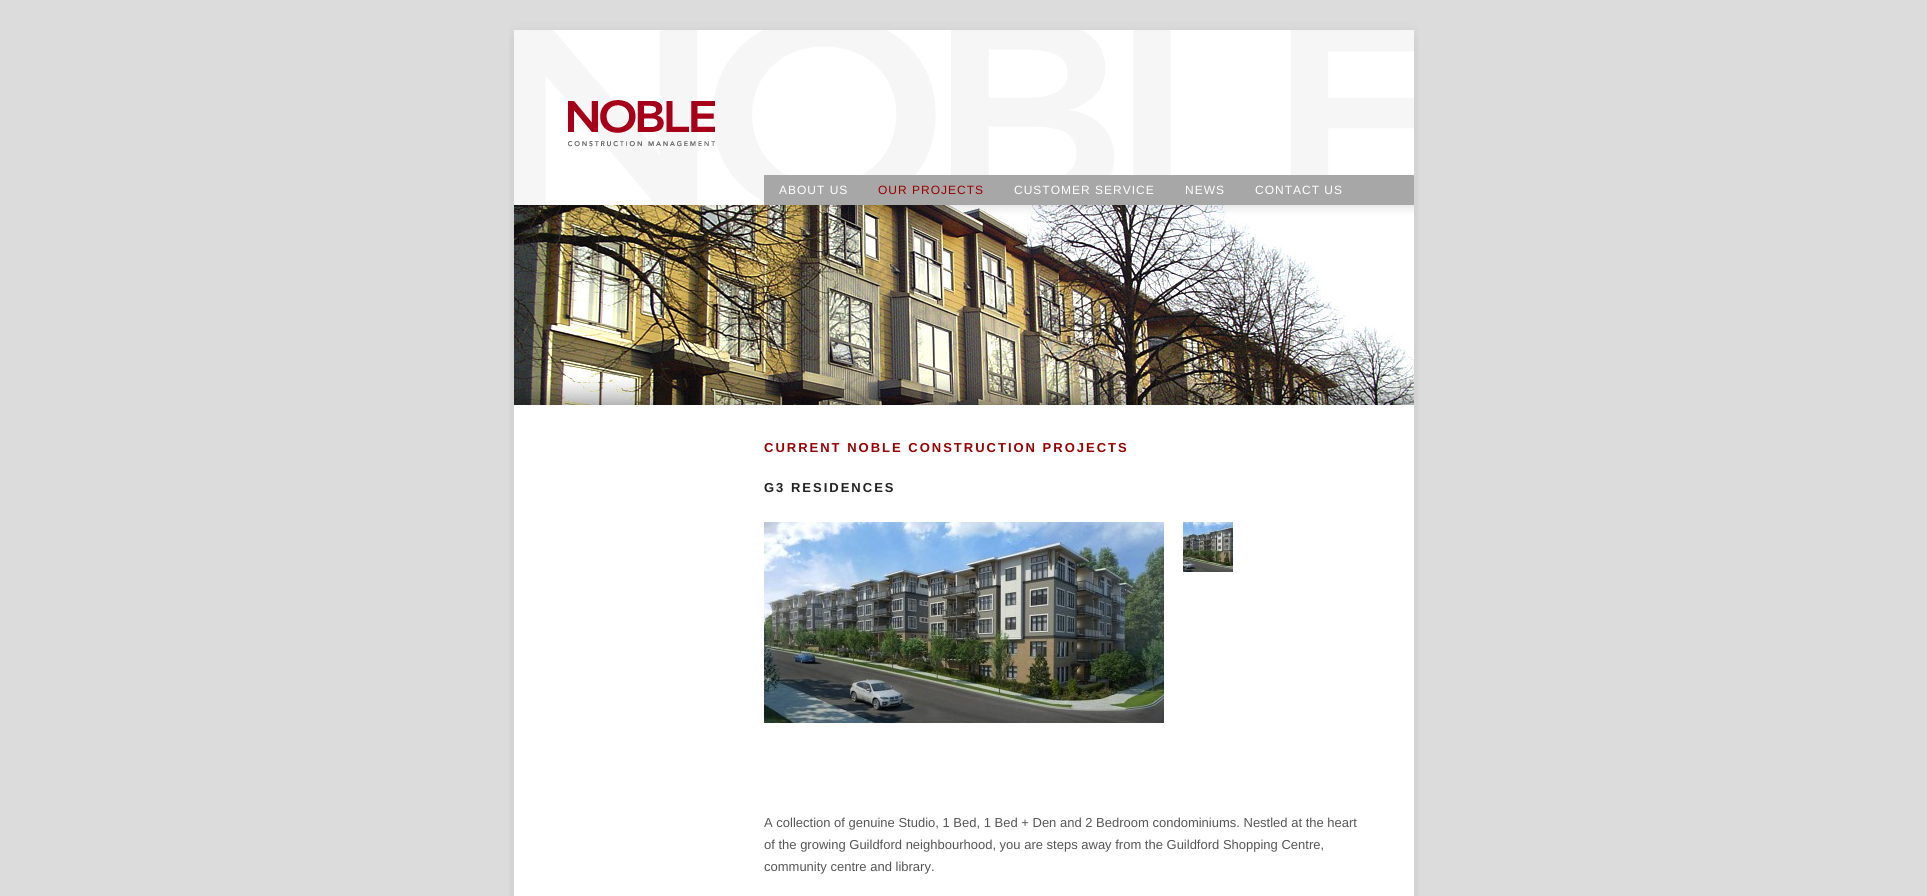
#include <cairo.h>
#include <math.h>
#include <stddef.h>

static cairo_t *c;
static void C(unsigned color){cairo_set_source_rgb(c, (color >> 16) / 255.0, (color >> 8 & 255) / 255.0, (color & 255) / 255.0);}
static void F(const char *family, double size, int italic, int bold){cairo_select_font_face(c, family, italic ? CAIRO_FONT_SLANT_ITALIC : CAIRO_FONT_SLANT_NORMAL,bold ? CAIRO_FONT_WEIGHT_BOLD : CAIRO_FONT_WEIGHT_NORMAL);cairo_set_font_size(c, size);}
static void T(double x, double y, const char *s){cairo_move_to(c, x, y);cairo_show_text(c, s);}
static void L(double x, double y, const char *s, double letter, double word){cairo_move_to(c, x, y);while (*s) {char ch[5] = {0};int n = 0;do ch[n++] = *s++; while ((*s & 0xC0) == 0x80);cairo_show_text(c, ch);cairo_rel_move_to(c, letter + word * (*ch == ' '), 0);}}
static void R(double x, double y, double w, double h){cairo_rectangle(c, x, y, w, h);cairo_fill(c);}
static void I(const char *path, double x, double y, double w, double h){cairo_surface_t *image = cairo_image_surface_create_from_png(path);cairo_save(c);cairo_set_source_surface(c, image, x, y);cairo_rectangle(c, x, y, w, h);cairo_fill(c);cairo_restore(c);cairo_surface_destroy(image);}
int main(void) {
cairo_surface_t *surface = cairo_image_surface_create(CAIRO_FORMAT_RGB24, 1927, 896);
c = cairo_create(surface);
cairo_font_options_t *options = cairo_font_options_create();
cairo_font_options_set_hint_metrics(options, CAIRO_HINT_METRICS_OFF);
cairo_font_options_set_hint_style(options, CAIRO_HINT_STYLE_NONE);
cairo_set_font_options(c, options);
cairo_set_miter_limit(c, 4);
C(0xdcdcdc);
cairo_paint(c);
I("1.png",509,205,910,691);
I("2.png",509,0,910,205);
C(0xa7a7a7);
R(764,175,650,30);
F("Liberation Sans",12,0,0);
C(0xffffff);
L(779,194,"ABOUT US",1,0);
C(0x990000);
L(878,194,"OUR PROJECTS",1,0);
C(0xffffff);
L(1014,194,"CUSTOMER SERVICE",1,0);
L(1185,194,"NEWS",1,0);
L(1255,194,"CONTACT US",1,0);
I("3.png",514,205,900,200);
F("Liberation Sans",13,0,1);
C(0x990000);
L(764,452,"CURRENT NOBLE CONSTRUCTION PROJECTS",2,0);
C(0x222222);
L(764,492,"G3 RESIDENCES",2,0);
I("4.png",764,522,400,201);
I("5.png",1183,522,50,50);
F("Liberation Sans",13,0,0);
C(0x555555);
T(764,827,"A collection of genuine Studio, 1 Bed, 1 Bed + Den and 2 Bedroom condominiums. Nestled at the heart");
T(764,849,"of the growing Guildford neighbourhood, you are steps away from the Guildford Shopping Centre,");
T(764,871,"community centre and library.");
cairo_surface_write_to_png(surface, "o.png");
cairo_font_options_destroy(options);
cairo_destroy(c);
cairo_surface_destroy(surface);
return 0;
}
